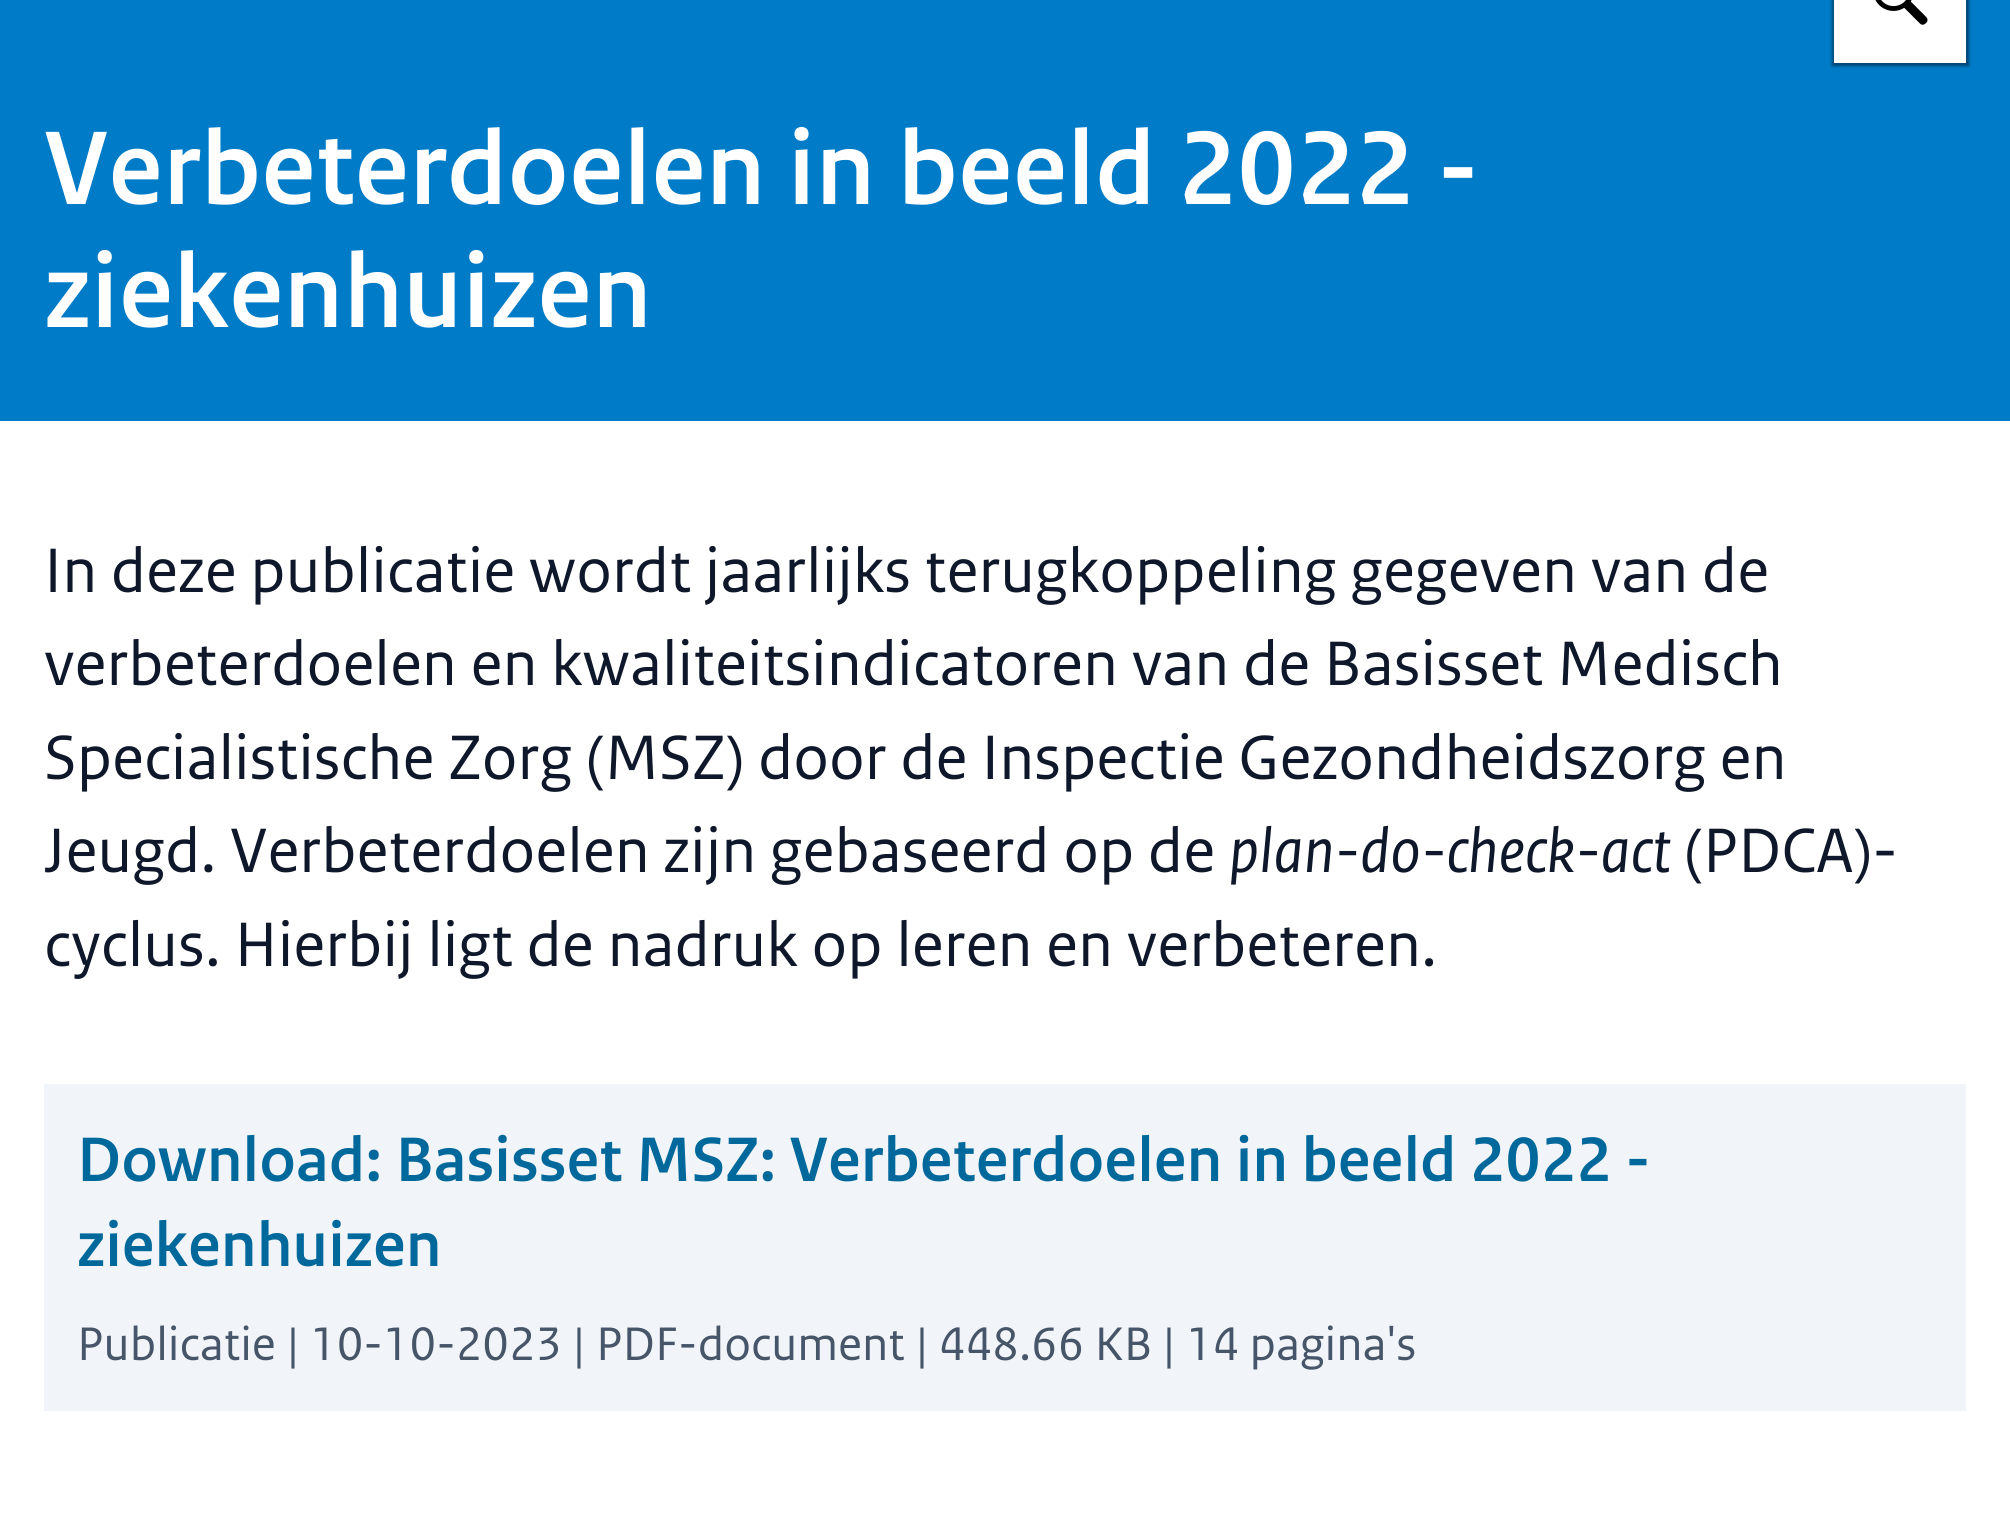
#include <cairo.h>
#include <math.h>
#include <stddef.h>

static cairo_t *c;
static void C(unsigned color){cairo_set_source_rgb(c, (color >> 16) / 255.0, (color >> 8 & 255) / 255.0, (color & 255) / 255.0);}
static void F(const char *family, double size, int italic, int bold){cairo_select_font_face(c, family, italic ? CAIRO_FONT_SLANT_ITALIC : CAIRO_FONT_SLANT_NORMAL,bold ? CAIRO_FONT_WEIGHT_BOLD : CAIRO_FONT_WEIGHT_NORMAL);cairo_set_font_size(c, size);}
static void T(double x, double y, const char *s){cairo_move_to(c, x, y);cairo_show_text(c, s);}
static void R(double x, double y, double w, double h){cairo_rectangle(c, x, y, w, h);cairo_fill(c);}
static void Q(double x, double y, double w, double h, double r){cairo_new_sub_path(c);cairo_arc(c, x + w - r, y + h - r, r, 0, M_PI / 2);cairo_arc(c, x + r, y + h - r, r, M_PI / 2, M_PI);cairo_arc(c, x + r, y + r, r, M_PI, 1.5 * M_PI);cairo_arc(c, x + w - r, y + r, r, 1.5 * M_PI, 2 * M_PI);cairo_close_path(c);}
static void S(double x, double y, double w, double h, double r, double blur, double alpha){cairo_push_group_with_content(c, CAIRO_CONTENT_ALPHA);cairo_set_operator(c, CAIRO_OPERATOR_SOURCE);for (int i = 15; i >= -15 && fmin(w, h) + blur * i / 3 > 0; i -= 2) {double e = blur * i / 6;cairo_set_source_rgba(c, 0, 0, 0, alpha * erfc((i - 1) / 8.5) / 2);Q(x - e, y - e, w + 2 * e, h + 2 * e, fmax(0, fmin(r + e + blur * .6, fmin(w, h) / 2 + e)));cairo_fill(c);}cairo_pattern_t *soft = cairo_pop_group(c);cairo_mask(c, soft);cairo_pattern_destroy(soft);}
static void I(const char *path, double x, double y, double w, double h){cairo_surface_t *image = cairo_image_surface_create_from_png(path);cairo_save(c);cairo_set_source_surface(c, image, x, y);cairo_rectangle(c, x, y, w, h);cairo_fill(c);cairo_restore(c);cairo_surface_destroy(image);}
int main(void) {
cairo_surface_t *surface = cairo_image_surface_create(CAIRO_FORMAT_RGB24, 2010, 1527);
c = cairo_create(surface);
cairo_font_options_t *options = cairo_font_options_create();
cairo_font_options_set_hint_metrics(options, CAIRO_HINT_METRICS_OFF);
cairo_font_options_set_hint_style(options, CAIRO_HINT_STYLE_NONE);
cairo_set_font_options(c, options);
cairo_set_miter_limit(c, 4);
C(0xffffff);
cairo_paint(c);
C(0x007bc7);
R(0,0,2010,421);
C(0x000000);
S(1832,-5,137,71,0,1.5,.44);
C(0xffffff);
R(1834,0,132,63);
I("1.png",1875,0,53,25);
F("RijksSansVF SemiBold",110,0,0);
T(44,204,"Verbeterdoelen in beeld 2022 -");
T(44,327,"ziekenhuizen");
F("RijksSansVF",66,0,0);
C(0x0f172a);
T(44,592,"In deze publicatie wordt jaarlijks terugkoppeling gegeven van de");
T(44,685,"verbeterdoelen en kwaliteitsindicatoren van de Basisset Medisch");
T(44,779,"Specialistische Zorg (MSZ) door de Inspectie Gezondheidszorg en");
T(44,872,"Jeugd. Verbeterdoelen zijn gebaseerd op de");
F("RijksSansVF",66,1,0);
T(1229,872,"plan-do-check-act");
F("RijksSansVF",66,0,0);
T(1684,872,"(PDCA)-");
T(44,966,"cyclus. Hierbij ligt de nadruk op leren en verbeteren.");
C(0xf1f5f9);
R(44,1084,1922,327);
F("RijksSansVF SemiBold",66,0,0);
C(0x01689b);
T(77,1181,"Download: Basisset MSZ: Verbeterdoelen in beeld 2022 -");
T(77,1266,"ziekenhuizen");
F("RijksSansVF",49.5,0,0);
C(0x475569);
T(77,1360,"Publicatie");
T(287,1360,"|");
T(310,1360,"10-10-2023");
T(573,1360,"|");
T(596,1360,"PDF-document");
T(916,1360,"|");
T(939,1360,"448.66 KB");
T(1163,1360,"|");
T(1186,1360,"14 pagina's");
cairo_surface_write_to_png(surface, "o.png");
cairo_font_options_destroy(options);
cairo_destroy(c);
cairo_surface_destroy(surface);
return 0;
}
